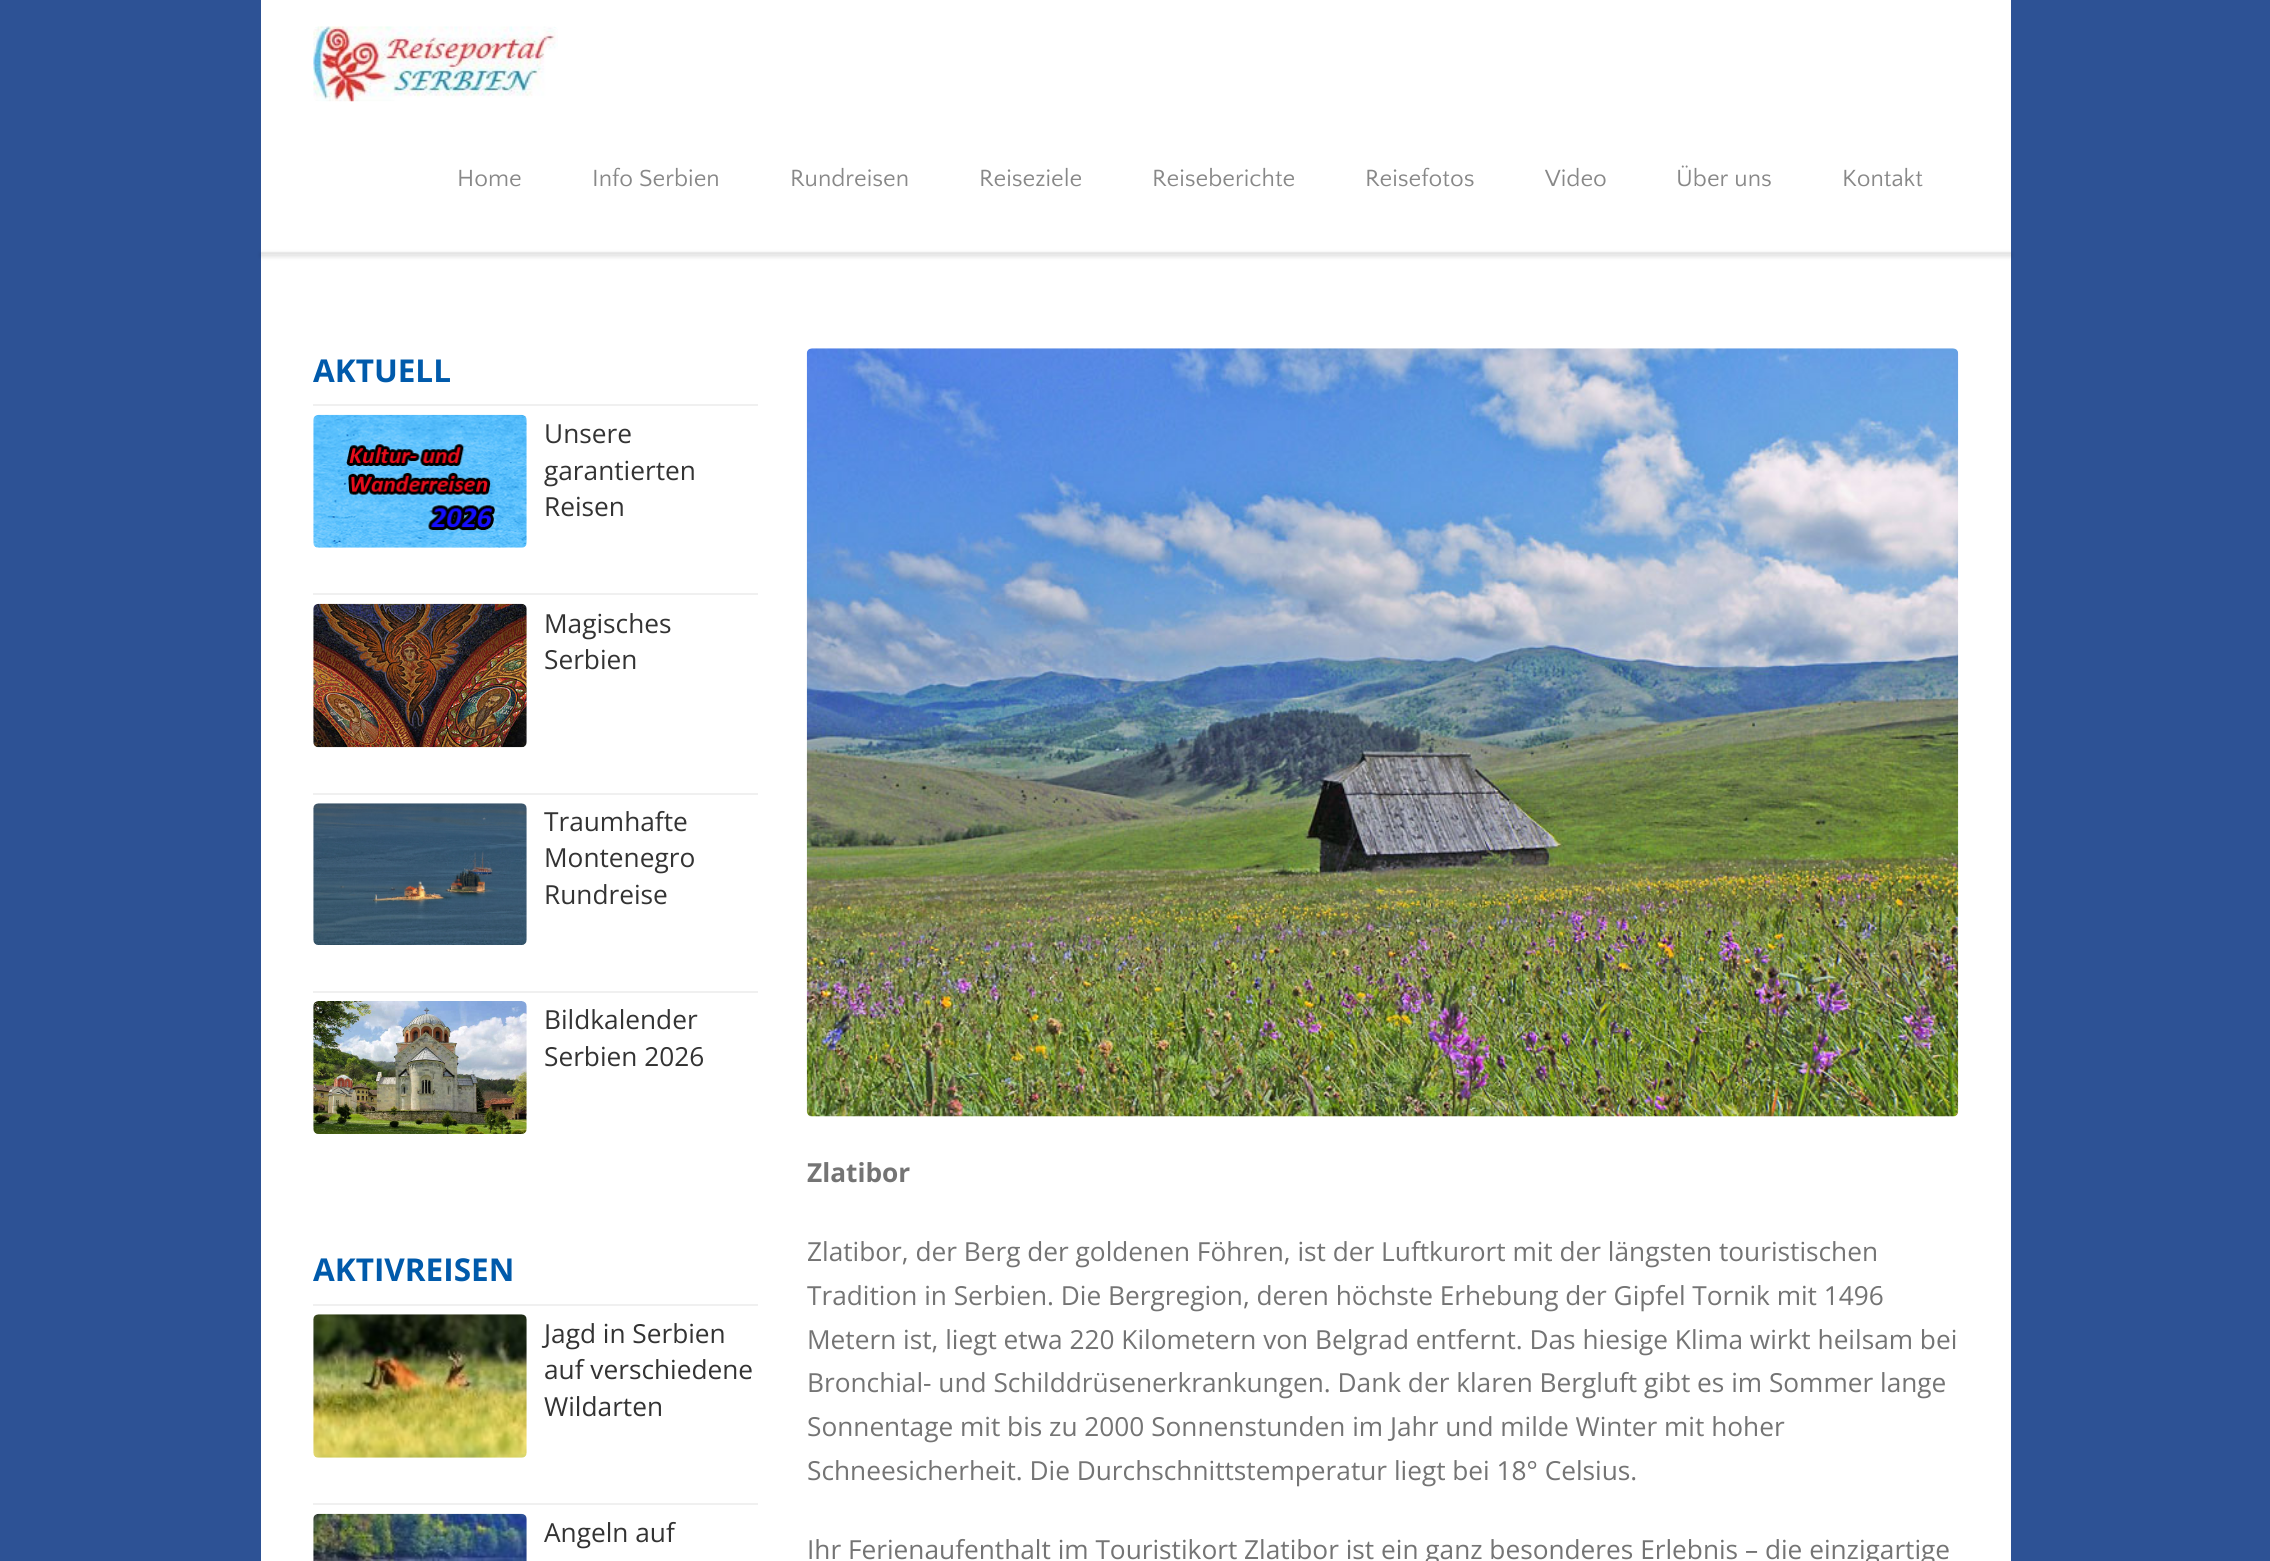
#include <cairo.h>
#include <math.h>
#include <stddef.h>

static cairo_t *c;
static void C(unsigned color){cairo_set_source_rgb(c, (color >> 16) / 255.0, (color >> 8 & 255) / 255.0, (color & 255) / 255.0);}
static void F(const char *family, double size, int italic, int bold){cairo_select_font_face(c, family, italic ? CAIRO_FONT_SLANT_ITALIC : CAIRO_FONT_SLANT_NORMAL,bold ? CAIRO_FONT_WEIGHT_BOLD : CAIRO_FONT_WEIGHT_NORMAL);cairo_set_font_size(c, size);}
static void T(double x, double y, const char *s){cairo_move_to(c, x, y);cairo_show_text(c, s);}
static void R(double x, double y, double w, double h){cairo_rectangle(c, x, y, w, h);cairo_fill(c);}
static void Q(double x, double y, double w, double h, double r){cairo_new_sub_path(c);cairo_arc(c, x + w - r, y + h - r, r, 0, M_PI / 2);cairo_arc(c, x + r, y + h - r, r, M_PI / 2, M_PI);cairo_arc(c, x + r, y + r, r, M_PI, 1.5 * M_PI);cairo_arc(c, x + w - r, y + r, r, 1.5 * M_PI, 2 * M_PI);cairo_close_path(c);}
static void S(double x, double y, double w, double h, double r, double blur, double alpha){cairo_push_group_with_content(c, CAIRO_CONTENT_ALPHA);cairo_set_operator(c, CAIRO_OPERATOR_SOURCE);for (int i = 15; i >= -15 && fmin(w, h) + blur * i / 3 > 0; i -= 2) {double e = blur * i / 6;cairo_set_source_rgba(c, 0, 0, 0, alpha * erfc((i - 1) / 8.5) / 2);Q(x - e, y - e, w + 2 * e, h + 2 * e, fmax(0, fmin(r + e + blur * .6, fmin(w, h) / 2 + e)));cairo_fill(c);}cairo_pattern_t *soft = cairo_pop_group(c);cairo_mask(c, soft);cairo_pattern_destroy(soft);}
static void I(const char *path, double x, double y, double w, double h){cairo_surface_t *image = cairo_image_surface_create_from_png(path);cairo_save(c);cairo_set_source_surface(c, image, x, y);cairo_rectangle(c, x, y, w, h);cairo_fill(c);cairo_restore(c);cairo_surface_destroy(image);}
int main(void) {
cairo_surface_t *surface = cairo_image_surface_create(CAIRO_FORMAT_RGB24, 2270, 1561);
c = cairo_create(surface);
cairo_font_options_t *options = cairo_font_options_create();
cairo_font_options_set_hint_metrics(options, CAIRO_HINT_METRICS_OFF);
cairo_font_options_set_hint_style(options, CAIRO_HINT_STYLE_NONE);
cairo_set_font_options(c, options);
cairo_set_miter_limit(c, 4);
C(0x2d5295);
cairo_paint(c);
C(0xffffff);
R(261,0,1750,1561);
I("1.png",313,26,245,76);
F("Quattrocento Sans",24.5,0,0);
C(0x888888);
T(457,186,"Home");
T(592,186,"Info Serbien");
T(790,186,"Rundreisen");
T(979,186,"Reiseziele");
T(1152,186,"Reiseberichte");
T(1365,186,"Reisefotos");
T(1545,186,"Video");
T(1676,186,"Über uns");
T(1842,186,"Kontakt");
C(0x000000);
S(261,254,1750,2,0,2.5,.15);
cairo_set_source_rgba(c,0,0,0,0.05);
R(261,252,1750,2);
F("Open Sans",31.5,0,1);
C(0x005aab);
T(313,382,"AKTUELL");
C(0xf0f0f0);
R(313,404,445,2);
I("2.png",313,414,214,134);
F("Open Sans",26.25,0,0);
C(0x333333);
T(544,443,"Unsere");
T(544,480,"garantierten");
T(544,516,"Reisen");
C(0xf0f0f0);
R(313,593,445,2);
I("3.png",313,603,214,145);
C(0x333333);
T(544,633,"Magisches");
T(544,669,"Serbien");
C(0xf0f0f0);
R(313,793,445,2);
I("4.png",313,803,214,142);
C(0x333333);
T(544,831,"Traumhafte");
T(544,867,"Montenegro");
T(544,904,"Rundreise");
C(0xf0f0f0);
R(313,991,445,2);
I("5.png",313,1001,214,133);
C(0x333333);
T(544,1029,"Bildkalender");
T(544,1066,"Serbien 2026");
F("Open Sans",31.5,0,1);
C(0x005aab);
T(313,1281,"AKTIVREISEN");
C(0xf0f0f0);
R(313,1304,445,2);
I("6.png",313,1314,214,144);
F("Open Sans",26.25,0,0);
C(0x333333);
T(544,1343,"Jagd in Serbien");
T(544,1379,"auf verschiedene");
T(544,1416,"Wildarten");
C(0xf0f0f0);
R(313,1503,445,2);
I("7.png",313,1513,214,48);
C(0x333333);
T(544,1542,"Angeln auf");
I("8.png",806,348,1153,769);
F("Open Sans",26.25,0,1);
C(0x747474);
T(807,1182,"Zlatibor");
F("Open Sans",26.25,0,0);
T(807,1261,"Zlatibor, der Berg der goldenen Föhren, ist der Luftkurort mit der längsten touristischen");
T(807,1305,"Tradition in Serbien. Die Bergregion, deren höchste Erhebung der Gipfel Tornik mit 1496");
T(807,1349,"Metern ist, liegt etwa 220 Kilometern von Belgrad entfernt. Das hiesige Klima wirkt heilsam bei");
T(807,1392,"Bronchial- und Schilddrüsenerkrankungen. Dank der klaren Bergluft gibt es im Sommer lange");
T(807,1436,"Sonnentage mit bis zu 2000 Sonnenstunden im Jahr und milde Winter mit hoher");
T(807,1480,"Schneesicherheit. Die Durchschnittstemperatur liegt bei 18° Celsius.");
T(807,1559,"Ihr Ferienaufenthalt im Touristikort Zlatibor ist ein ganz besonderes Erlebnis – die einzigartige");
cairo_surface_write_to_png(surface, "o.png");
cairo_font_options_destroy(options);
cairo_destroy(c);
cairo_surface_destroy(surface);
return 0;
}
